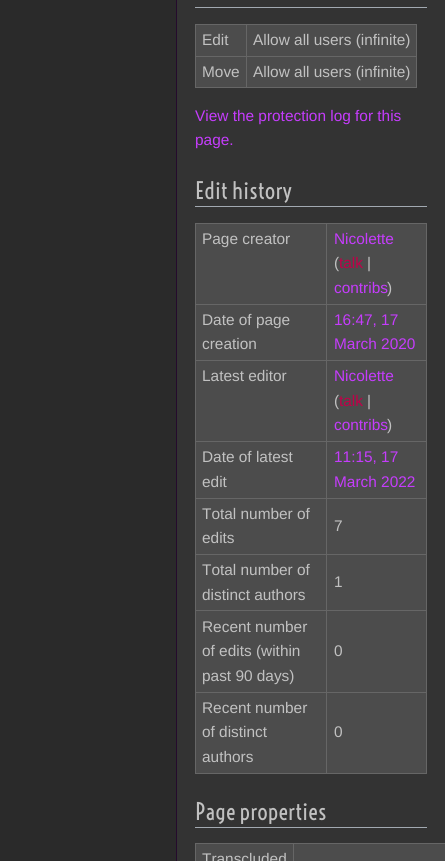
#include <cairo.h>
#include <math.h>
#include <stddef.h>

static cairo_t *c;
static void C(unsigned color){cairo_set_source_rgb(c, (color >> 16) / 255.0, (color >> 8 & 255) / 255.0, (color & 255) / 255.0);}
static void F(const char *family, double size, int italic, int bold){cairo_select_font_face(c, family, italic ? CAIRO_FONT_SLANT_ITALIC : CAIRO_FONT_SLANT_NORMAL,bold ? CAIRO_FONT_WEIGHT_BOLD : CAIRO_FONT_WEIGHT_NORMAL);cairo_set_font_size(c, size);}
static void T(double x, double y, const char *s){cairo_move_to(c, x, y);cairo_show_text(c, s);}
static void R(double x, double y, double w, double h){cairo_rectangle(c, x, y, w, h);cairo_fill(c);}
int main(void) {
cairo_surface_t *surface = cairo_image_surface_create(CAIRO_FORMAT_RGB24, 445, 861);
c = cairo_create(surface);
cairo_font_options_t *options = cairo_font_options_create();
cairo_font_options_set_hint_metrics(options, CAIRO_HINT_METRICS_OFF);
cairo_font_options_set_hint_style(options, CAIRO_HINT_STYLE_NONE);
cairo_set_font_options(c, options);
cairo_set_miter_limit(c, 4);
C(0x2a2a2a);
cairo_paint(c);
C(0x333333);
R(177,0,268,861);
C(0x250b2d);
R(176,0,1,861);
C(0xa2a9b1);
R(195,7,232,1);
C(0x4c4c4c);
R(196,25,220,62);
C(0x666666);
R(195,24,222,1);
R(416,24,1,64);
R(195,87,222,1);
R(195,24,1,64);
F("Liberation Sans",15.4,0,0);
C(0xc1c1c1);
T(202,45,"Edit");
C(0x666666);
R(246,56,171,1);
R(246,56,1,32);
R(195,56,52,1);
R(246,24,1,33);
C(0xc1c1c1);
T(253,45,"Allow all users (infinite)");
T(202,77,"Move");
T(253,77,"Allow all users (infinite)");
C(0xc53cfc);
T(195,121,"View the protection log for this");
T(195,145,"page.");
C(0xa2a9b1);
R(195,206,232,1);
F("Voltaire",23,0,0);
C(0xc1c1c1);
T(195,199,"Edit history");
C(0x4c4c4c);
R(196,224,230,549);
C(0x666666);
R(195,223,232,1);
R(426,223,1,551);
R(195,773,232,1);
R(195,223,1,551);
F("Liberation Sans",15.4,0,0);
C(0xc1c1c1);
T(202,244,"Page creator");
C(0x666666);
R(326,304,101,1);
R(326,360,101,1);
R(326,441,101,1);
R(326,498,101,1);
R(326,554,101,1);
R(326,610,101,1);
R(326,692,101,1);
R(326,692,1,82);
R(195,692,132,1);
R(326,610,1,83);
R(195,610,132,1);
R(326,554,1,57);
R(195,554,132,1);
R(326,498,1,57);
R(195,498,132,1);
R(326,441,1,58);
R(195,441,132,1);
R(326,360,1,82);
R(195,360,132,1);
R(326,304,1,57);
R(195,304,132,1);
R(326,223,1,82);
C(0xc53cfc);
T(334,244,"Nicolette");
C(0xc1c1c1);
T(334,268,"(");
C(0xc00048);
T(339,268,"talk");
C(0xc1c1c1);
T(367,268,"|");
C(0xc53cfc);
T(334,293,"contribs");
C(0xc1c1c1);
T(387,293,")");
T(202,325,"Date of page");
T(202,349,"creation");
C(0xc53cfc);
T(334,325,"16:47, 17");
T(334,349,"March 2020");
C(0xc1c1c1);
T(202,381,"Latest editor");
C(0xc53cfc);
T(334,381,"Nicolette");
C(0xc1c1c1);
T(334,406,"(");
C(0xc00048);
T(339,406,"talk");
C(0xc1c1c1);
T(367,406,"|");
C(0xc53cfc);
T(334,430,"contribs");
C(0xc1c1c1);
T(387,430,")");
T(202,462,"Date of latest");
T(202,487,"edit");
C(0xc53cfc);
T(334,462,"11:15, 17");
T(334,487,"March 2022");
C(0xc1c1c1);
T(202,519,"Total number of");
T(202,543,"edits");
T(334,531,"7");
T(202,575,"Total number of");
T(202,600,"distinct authors");
T(334,587,"1");
T(202,632,"Recent number");
T(202,656,"of edits (within");
T(202,681,"past 90 days)");
T(334,656,"0");
T(202,713,"Recent number");
T(202,737,"of distinct");
T(202,762,"authors");
T(334,737,"0");
C(0xa2a9b1);
R(195,827,232,1);
F("Voltaire",23,0,0);
C(0xc1c1c1);
T(195,820,"Page properties");
C(0x4c4c4c);
R(196,844,249,17);
C(0x666666);
R(195,843,250,1);
R(195,843,1,18);
F("Liberation Sans",15.4,0,0);
C(0xc1c1c1);
T(202,864,"Transcluded");
C(0x666666);
R(293,843,1,18);
cairo_surface_write_to_png(surface, "o.png");
cairo_font_options_destroy(options);
cairo_destroy(c);
cairo_surface_destroy(surface);
return 0;
}
